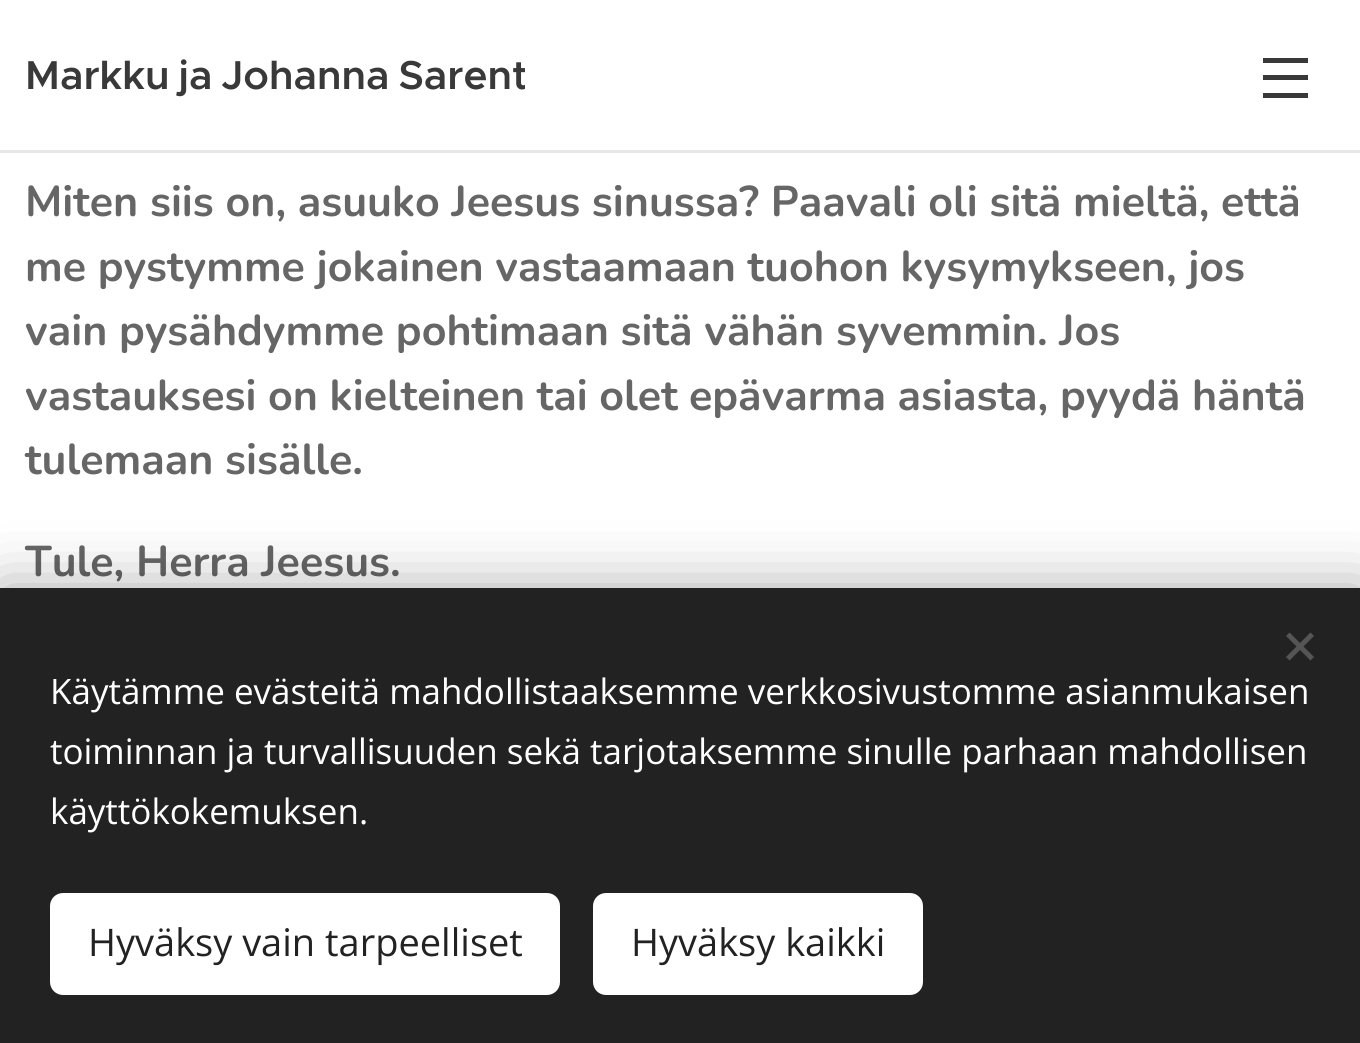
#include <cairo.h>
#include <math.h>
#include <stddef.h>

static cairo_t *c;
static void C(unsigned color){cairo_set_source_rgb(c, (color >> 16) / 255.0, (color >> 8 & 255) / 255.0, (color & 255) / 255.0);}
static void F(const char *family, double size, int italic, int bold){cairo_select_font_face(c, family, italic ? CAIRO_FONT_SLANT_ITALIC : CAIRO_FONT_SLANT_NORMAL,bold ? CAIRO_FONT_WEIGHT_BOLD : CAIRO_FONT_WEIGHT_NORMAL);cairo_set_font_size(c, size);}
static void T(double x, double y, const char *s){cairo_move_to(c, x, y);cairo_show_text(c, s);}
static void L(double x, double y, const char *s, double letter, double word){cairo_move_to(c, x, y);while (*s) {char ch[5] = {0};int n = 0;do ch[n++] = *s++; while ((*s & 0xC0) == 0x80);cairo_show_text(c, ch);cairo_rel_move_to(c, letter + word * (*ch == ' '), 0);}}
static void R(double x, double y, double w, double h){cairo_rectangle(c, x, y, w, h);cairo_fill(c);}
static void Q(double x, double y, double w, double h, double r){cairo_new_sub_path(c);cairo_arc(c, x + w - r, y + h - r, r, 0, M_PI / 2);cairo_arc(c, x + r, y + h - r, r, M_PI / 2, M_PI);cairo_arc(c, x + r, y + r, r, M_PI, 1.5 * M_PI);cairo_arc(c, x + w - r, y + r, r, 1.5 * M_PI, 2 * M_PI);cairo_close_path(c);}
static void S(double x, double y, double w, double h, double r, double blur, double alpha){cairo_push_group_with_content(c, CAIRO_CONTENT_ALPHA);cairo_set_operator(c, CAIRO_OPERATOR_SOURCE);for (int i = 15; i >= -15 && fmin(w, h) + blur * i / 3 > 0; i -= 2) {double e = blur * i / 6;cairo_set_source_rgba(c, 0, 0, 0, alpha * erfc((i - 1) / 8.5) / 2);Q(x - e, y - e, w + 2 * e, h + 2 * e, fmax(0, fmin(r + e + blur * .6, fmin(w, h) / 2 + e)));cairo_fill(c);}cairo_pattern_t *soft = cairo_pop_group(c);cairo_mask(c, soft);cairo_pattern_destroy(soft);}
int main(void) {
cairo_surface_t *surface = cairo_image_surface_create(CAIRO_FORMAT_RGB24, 1360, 1043);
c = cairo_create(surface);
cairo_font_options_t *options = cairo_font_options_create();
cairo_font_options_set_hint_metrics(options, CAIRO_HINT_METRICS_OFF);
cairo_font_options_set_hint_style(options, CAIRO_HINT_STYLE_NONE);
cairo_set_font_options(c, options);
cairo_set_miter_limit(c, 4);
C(0xffffff);
cairo_paint(c);
C(0xe8e8e8);
R(0,150,1360,3);
cairo_save(c);
cairo_rectangle(c,15,43,510,67);
cairo_clip(c);
F("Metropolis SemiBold",40.5,0,0);
C(0x393939);
L(25,89,"Markku ja Johanna Sarent",0,-2.5);
cairo_restore(c);
C(0x393939);
R(1263,75,45,5);
R(1263,58,45,5);
R(1263,93,45,5);
F("Nunito",43,0,1);
C(0x666666);
T(25,216,"Miten siis on, asuuko Jeesus sinussa? Paavali oli sitä mieltä, että");
T(25,281,"me pystymme jokainen vastaamaan tuohon kysymykseen, jos");
T(25,345,"vain pysähdymme pohtimaan sitä vähän syvemmin. Jos");
T(25,410,"vastauksesi on kielteinen tai olet");
T(689,410,"epävarma asiasta, pyydä häntä");
T(25,474,"tulemaan sisälle.");
T(25,576,"Tule, Herra Jeesus.");
C(0x000000);
S(0,588,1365,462,0,31,.33);
C(0x222222);
R(0,588,1360,455);
C(0x555555);
cairo_new_path(c);
cairo_move_to(c,1286,657);
cairo_line_to(c,1310.5,632.5);
cairo_line_to(c,1314,636);
cairo_line_to(c,1289.5,660.5);
cairo_close_path(c);
cairo_fill(c);
cairo_new_path(c);
cairo_move_to(c,1289.5,632.5);
cairo_line_to(c,1314,657);
cairo_line_to(c,1310.5,660.5);
cairo_line_to(c,1286,636);
cairo_close_path(c);
cairo_fill(c);
F("Open Sans",35,0,0);
C(0xffffff);
T(50,704,"Käytämme evästeitä mahdollistaaksemme verkkosivustomme asianmukaisen");
T(50,764,"toiminnan ja turvallisuuden sekä tarjotaksemme sinulle parhaan mahdollisen");
T(50,824,"käyttökokemuksen.");
Q(50,893,510,102,13);
cairo_fill(c);
F("Open Sans",38,0,0);
C(0x222222);
T(88,956,"Hyväksy vain tarpeelliset");
C(0xffffff);
Q(593,893,330,102,13);
cairo_fill(c);
C(0x222222);
T(631,956,"Hyväksy kaikki");
cairo_surface_write_to_png(surface, "o.png");
cairo_font_options_destroy(options);
cairo_destroy(c);
cairo_surface_destroy(surface);
return 0;
}
